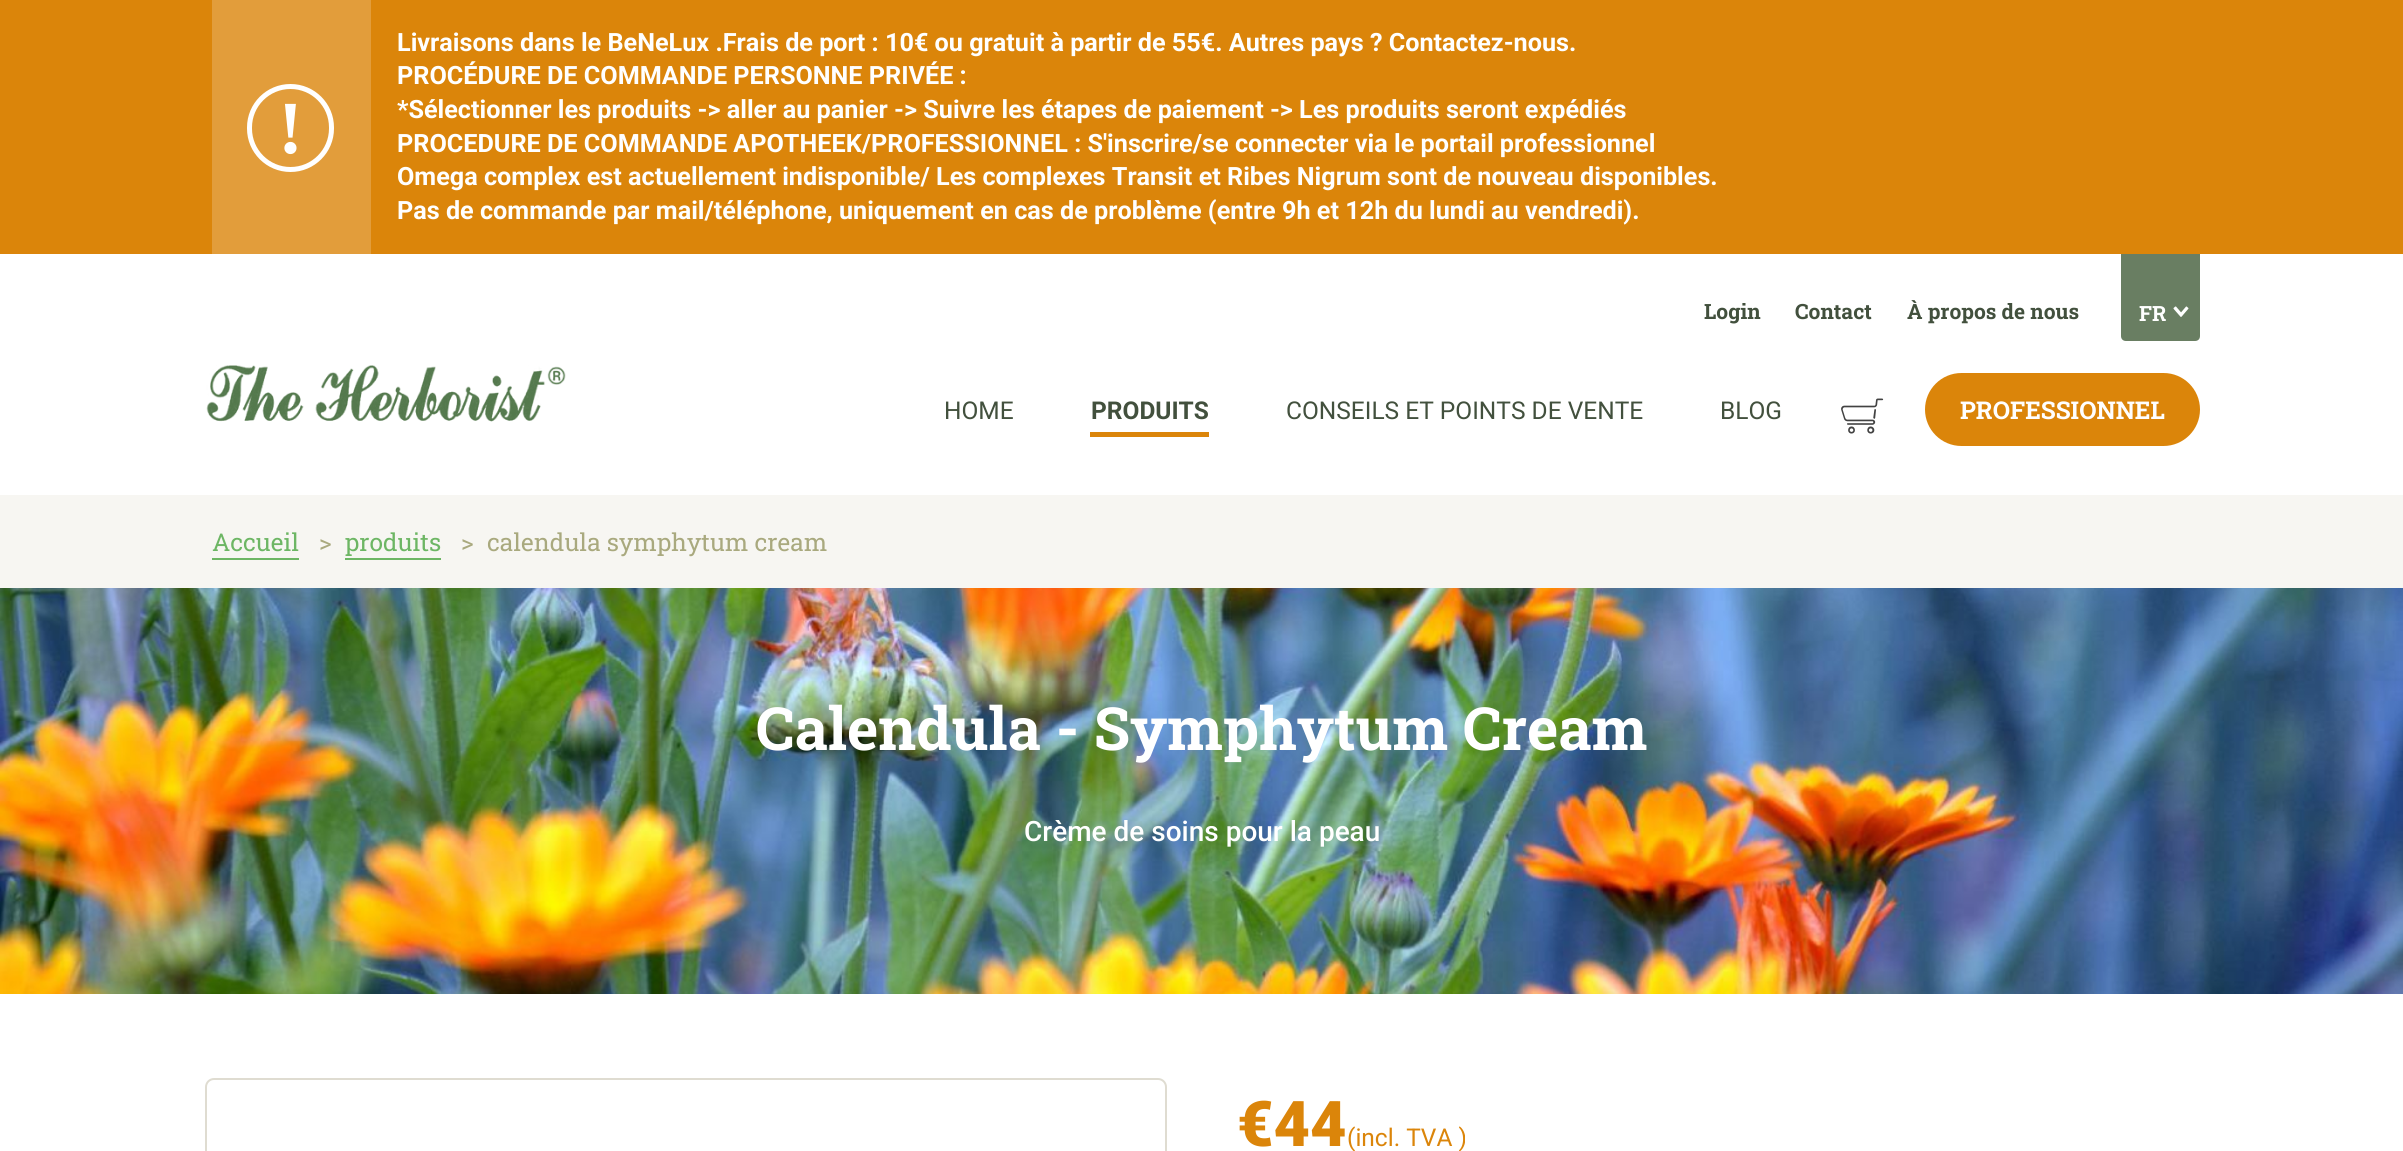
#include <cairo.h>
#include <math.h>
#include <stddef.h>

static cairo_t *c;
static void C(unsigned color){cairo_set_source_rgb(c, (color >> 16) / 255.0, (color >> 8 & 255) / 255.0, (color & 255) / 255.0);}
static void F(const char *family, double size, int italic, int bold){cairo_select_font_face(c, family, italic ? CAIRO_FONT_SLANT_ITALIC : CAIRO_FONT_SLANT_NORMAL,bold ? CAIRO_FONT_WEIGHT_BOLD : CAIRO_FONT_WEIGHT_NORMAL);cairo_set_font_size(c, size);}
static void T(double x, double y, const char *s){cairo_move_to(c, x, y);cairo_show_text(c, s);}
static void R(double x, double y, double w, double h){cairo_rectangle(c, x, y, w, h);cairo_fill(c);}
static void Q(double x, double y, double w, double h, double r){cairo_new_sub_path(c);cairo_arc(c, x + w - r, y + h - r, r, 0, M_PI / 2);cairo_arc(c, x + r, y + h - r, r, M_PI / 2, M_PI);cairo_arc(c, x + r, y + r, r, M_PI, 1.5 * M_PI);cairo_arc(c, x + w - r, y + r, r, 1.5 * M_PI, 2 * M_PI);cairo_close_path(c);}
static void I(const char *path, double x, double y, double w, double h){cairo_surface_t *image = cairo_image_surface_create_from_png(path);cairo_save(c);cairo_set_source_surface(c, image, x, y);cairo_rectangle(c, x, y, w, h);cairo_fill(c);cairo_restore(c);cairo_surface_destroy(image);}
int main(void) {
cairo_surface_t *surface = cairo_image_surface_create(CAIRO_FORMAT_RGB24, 2403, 1151);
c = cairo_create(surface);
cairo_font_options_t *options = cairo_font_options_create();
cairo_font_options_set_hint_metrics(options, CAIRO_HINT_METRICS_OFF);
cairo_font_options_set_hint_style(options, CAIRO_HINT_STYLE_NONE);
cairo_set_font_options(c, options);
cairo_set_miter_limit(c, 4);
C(0xdb850a);
cairo_paint(c);
C(0xe29d3b);
R(212,0,159,254);
Q(249.5,86.5,82,83,41);
C(0xffffff);
cairo_set_line_width(c,5);
cairo_stroke(c);
F("Liberation Serif",75,0,1);
T(278,153,"!");
F("Roboto",25.2,0,1);
T(397,51,"Livraisons dans le BeNeLux .Frais de port : 10€ ou gratuit à partir de 55€. Autres pays ? Contactez-nous.");
T(397,84,"PROCÉDURE DE COMMANDE PERSONNE PRIVÉE :");
T(397,118,"*Sélectionner les produits -> aller au panier -> Suivre les étapes de paiement -> Les produits seront expédiés");
T(397,152,"PROCEDURE DE COMMANDE APOTHEEK/PROFESSIONNEL : S'inscrire/se connecter via le portail professionnel");
T(397,185,"Omega complex est actuellement indisponible/ Les complexes Transit et Ribes Nigrum sont de nouveau disponibles.");
T(397,219,"Pas de commande par mail/téléphone, uniquement en cas de problème (entre 9h et 12h du lundi au vendredi).");
R(0,254,2403,897);
F("Roboto Slab",21,0,1);
C(0x42503d);
T(1704,319,"Login");
T(1795,319,"Contact");
T(1907,319,"À propos de nous");
C(0x697e62);
cairo_new_path(c);
cairo_move_to(c,2121,254);
cairo_line_to(c,2200,254);
cairo_line_to(c,2200,336);
cairo_curve_to(c,2200,339,2198,341,2195,341);
cairo_line_to(c,2126,341);
cairo_curve_to(c,2123,341,2121,339,2121,336);
cairo_close_path(c);
cairo_fill(c);
C(0xffffff);
T(2139,321,"FR");
I("1.png",2173,306,16,11);
I("2.png",206,365,360,57);
F("Roboto",24.5,0,0);
C(0x42503d);
T(944,419,"HOME");
F("Roboto",24.5,0,1);
T(1091,419,"PRODUITS");
C(0xdb850a);
R(1090,432,119,5);
F("Roboto",24.5,0,0);
C(0x42503d);
T(1286,419,"CONSEILS ET POINTS DE VENTE");
T(1720,419,"BLOG");
I("3.png",1841,398,43,36);
C(0xdb850a);
Q(1925,373,275,73,36.5);
cairo_fill(c);
F("Roboto Slab",24.5,0,1);
C(0xffffff);
T(1960,419,"PROFESSIONNEL");
C(0xf7f6f2);
R(0,495,2403,93);
F("Roboto Slab",24.5,0,0);
C(0x6db664);
T(212,551,"Accueil");
R(212,558,87,2);
C(0xa9a97e);
T(319,551,">");
C(0x6db664);
T(345,551,"produits");
R(345,558,96,2);
C(0xa9a97e);
T(461,551,">");
T(487,551,"calendula symphytum cream");
I("4.png",0,588,2403,406);
F("Roboto Slab",59.5,0,1);
C(0xffffff);
T(756,750,"Calendula - Symphytum Cream");
F("Roboto Medium",28,0,0);
T(1024,841,"Crème de soins pour la peau");
Q(206,1079,960,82,8);
C(0xdfdcd1);
cairo_set_line_width(c,2);
cairo_stroke(c);
F("Roboto Black",63,0,0);
C(0xdb850a);
T(1237,1146,"€44");
F("Roboto",24.5,0,0);
T(1347,1146,"(incl. TVA )");
cairo_surface_write_to_png(surface, "o.png");
cairo_font_options_destroy(options);
cairo_destroy(c);
cairo_surface_destroy(surface);
return 0;
}
